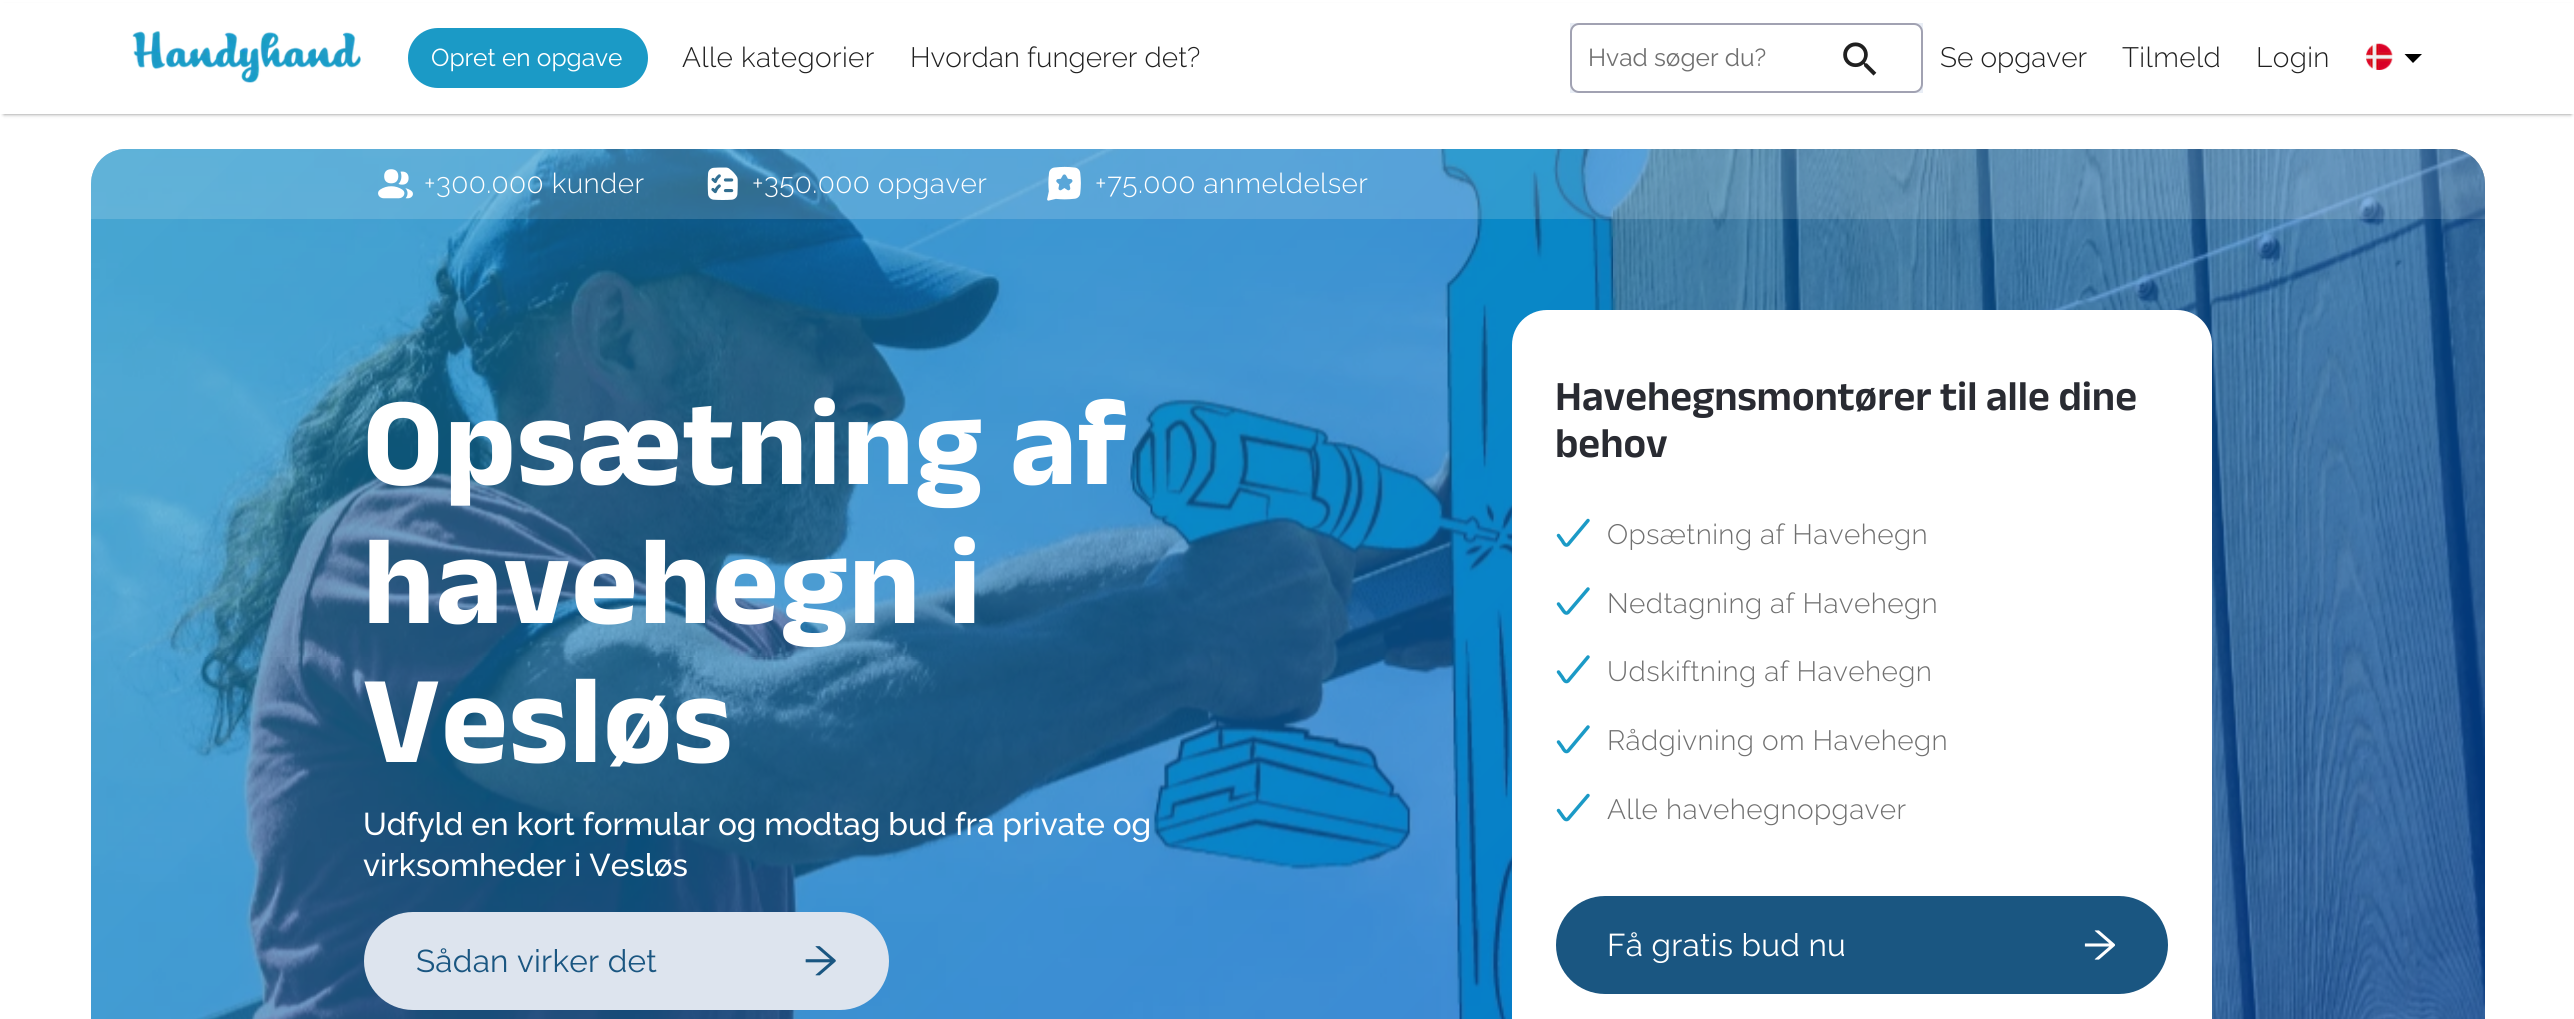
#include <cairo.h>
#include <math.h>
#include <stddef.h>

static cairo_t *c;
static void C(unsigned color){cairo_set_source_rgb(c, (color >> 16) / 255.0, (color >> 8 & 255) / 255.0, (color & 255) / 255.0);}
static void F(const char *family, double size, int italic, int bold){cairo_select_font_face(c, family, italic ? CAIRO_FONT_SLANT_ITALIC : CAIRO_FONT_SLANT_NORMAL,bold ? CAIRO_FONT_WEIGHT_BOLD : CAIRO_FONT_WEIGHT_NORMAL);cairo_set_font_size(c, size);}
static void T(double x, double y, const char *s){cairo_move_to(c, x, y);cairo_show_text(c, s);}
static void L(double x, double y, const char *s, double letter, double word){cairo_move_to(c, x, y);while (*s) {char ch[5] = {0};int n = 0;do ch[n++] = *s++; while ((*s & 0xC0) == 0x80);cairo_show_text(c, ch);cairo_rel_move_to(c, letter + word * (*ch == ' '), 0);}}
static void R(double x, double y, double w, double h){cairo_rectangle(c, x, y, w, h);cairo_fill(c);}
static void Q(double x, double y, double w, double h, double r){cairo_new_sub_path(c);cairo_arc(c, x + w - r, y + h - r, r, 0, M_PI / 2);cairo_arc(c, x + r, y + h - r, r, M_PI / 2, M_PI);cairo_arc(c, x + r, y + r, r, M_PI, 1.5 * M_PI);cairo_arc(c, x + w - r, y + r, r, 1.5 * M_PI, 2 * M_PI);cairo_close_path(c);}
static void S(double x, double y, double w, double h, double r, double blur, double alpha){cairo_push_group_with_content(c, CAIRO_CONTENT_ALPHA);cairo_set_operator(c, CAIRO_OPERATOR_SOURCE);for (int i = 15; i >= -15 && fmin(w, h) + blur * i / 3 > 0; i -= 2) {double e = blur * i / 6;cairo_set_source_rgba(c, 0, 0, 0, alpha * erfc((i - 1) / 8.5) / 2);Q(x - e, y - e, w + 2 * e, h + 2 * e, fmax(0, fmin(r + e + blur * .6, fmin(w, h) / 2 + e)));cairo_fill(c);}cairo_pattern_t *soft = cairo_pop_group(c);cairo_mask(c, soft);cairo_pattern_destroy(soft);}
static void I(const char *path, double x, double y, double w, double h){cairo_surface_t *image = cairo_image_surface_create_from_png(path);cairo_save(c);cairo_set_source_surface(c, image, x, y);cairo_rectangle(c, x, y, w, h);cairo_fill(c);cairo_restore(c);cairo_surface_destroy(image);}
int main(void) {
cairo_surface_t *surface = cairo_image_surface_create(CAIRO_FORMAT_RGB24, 2574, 1019);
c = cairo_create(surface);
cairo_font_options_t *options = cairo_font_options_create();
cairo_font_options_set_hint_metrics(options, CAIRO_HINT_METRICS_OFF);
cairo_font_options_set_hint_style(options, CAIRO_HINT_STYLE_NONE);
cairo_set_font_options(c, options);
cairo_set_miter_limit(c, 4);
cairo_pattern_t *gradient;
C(0xffffff);
cairo_paint(c);
C(0x000000);
S(4,7,2567,107,0,2,.5);
C(0xffffff);
R(0,3,2574,111);
I("1.png",132,31,229,52);
C(0x1b9ac6);
Q(408,28,240,60,30);
cairo_fill(c);
F("Raleway",24.5,0,0);
C(0xffffff);
T(431,66,"Opret en opgave");
F("Raleway Light",28,0,0);
C(0x202020);
L(682,67,"Alle kategorier",.4,0);
T(910,67,"Hvordan fungerer det?");
C(0xe9eef6);
R(1570,23,353,70);
C(0xffffff);
Q(1571,24,351,68,8);
cairo_fill_preserve(c);
C(0xa1a2b2);
cairo_stroke(c);
F("Raleway",24.5,0,0);
C(0x707070);
T(1588,66,"Hvad søger du?");
I("2.png",1843,42,34,34);
F("Raleway Light",28,0,0);
C(0x202020);
T(1940,67,"Se opgaver");
L(2122,67,"Tilmeld",.4,0);
L(2256,67,"Login",.4,0);
I("3.png",2366,43,27,27);
C(0x000000);
cairo_new_path(c);
cairo_move_to(c,2404.5,54);
cairo_line_to(c,2422,54);
cairo_line_to(c,2413,63);
cairo_close_path(c);
cairo_fill(c);
I("4.png",91,149,2394,870);
gradient = cairo_pattern_create_linear(414,-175,2162,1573);
cairo_pattern_add_color_stop_rgba(gradient,0,0.106,0.604,0.776,.6);
cairo_pattern_add_color_stop_rgba(gradient,1,0,0.322,0.8,.6);
cairo_set_source(c,gradient);
cairo_pattern_destroy(gradient);
cairo_new_path(c);
cairo_move_to(c,126,149);
cairo_line_to(c,2450,149);
cairo_curve_to(c,2469.5,149,2485,164.5,2485,184);
cairo_line_to(c,2485,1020);
cairo_line_to(c,91,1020);
cairo_line_to(c,91,184);
cairo_curve_to(c,91,164.5,106.5,149,126,149);
cairo_close_path(c);
cairo_fill(c);
cairo_set_source_rgba(c,1,1,1,0.15);
cairo_new_path(c);
cairo_move_to(c,126,149);
cairo_line_to(c,2450,149);
cairo_curve_to(c,2469.5,149,2485,164.5,2485,184);
cairo_line_to(c,2485,219);
cairo_line_to(c,91,219);
cairo_line_to(c,91,184);
cairo_curve_to(c,91,164.5,106.5,149,126,149);
cairo_close_path(c);
cairo_fill(c);
I("5.png",378,169,35,30);
C(0xffffff);
L(424,193,"+300.000 kunder",.4,0);
I("6.png",707,167,31,33);
L(752,193,"+350.000 opgaver",.4,0);
I("7.png",1047,166,34,35);
L(1095,193,"+75.000 anmeldelser",.4,0);
F("Anek Latin",126,0,1);
L(363,484,"Opsætning af",1.4,0);
L(363,623,"havehegn i",1.4,0);
L(363,762,"Vesløs",1.4,0);
F("Raleway Medium",31.5,0,0);
T(363,835,"Udfyld en kort formular og modtag bud fra private og");
T(363,876,"virksomheder i Vesløs");
C(0xdde4ee);
Q(364,912,525,98,49);
cairo_fill(c);
F("Raleway",31.5,0,0);
C(0x1a5681);
L(416,972,"Sådan virker det",.25,0);
I("8.png",805,946,31,30);
C(0xffffff);
cairo_new_path(c);
cairo_move_to(c,1547,310);
cairo_line_to(c,2177,310);
cairo_curve_to(c,2196.5,310,2212,325.5,2212,345);
cairo_line_to(c,2212,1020);
cairo_line_to(c,1512,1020);
cairo_line_to(c,1512,345);
cairo_curve_to(c,1512,325.5,1527.5,310,1547,310);
cairo_close_path(c);
cairo_fill(c);
F("Anek Latin SemiBold",42,0,0);
C(0x292b32);
T(1555,410,"Havehegnsmontører til alle dine");
T(1555,457,"behov");
cairo_new_path(c);
cairo_move_to(c,1558.5,535.5);
cairo_line_to(c,1562.5,541);
cairo_curve_to(c,1563.5,543,1565.5,546.5,1568,544.5);
cairo_line_to(c,1588,520.5);
C(0x1b9ac6);
cairo_set_line_width(c,3.5);
cairo_set_line_cap(c,CAIRO_LINE_CAP_ROUND);
cairo_set_line_join(c,CAIRO_LINE_JOIN_ROUND);
cairo_stroke(c);
F("Raleway Light",28,0,0);
C(0x707070);
L(1607,544,"Opsætning af Havehegn",.4,0);
cairo_new_path(c);
cairo_move_to(c,1558.5,604);
cairo_line_to(c,1562.5,609.5);
cairo_curve_to(c,1563.5,611,1565.5,614.5,1568,612.5);
cairo_line_to(c,1588,589);
C(0x1b9ac6);
cairo_stroke(c);
C(0x707070);
L(1607,613,"Nedtagning af Havehegn",.4,0);
cairo_new_path(c);
cairo_move_to(c,1558.5,672);
cairo_line_to(c,1562.5,677.5);
cairo_curve_to(c,1563.5,679.5,1565.5,683,1568,681);
cairo_line_to(c,1588,657);
C(0x1b9ac6);
cairo_stroke(c);
C(0x707070);
L(1607,681,"Udskiftning af Havehegn",.4,0);
cairo_new_path(c);
cairo_move_to(c,1558.5,742);
cairo_line_to(c,1562.5,747.5);
cairo_curve_to(c,1563.5,749.5,1565.5,753,1568,751);
cairo_line_to(c,1588,727);
C(0x1b9ac6);
cairo_stroke(c);
C(0x707070);
L(1607,750,"Rådgivning om Havehegn",.4,0);
cairo_new_path(c);
cairo_move_to(c,1558.5,810.5);
cairo_line_to(c,1562.5,816);
cairo_curve_to(c,1563.5,817.5,1565.5,821,1568,819);
cairo_line_to(c,1588,795.5);
C(0x1b9ac6);
cairo_stroke(c);
C(0x707070);
L(1607,819,"Alle havehegnopgaver",.4,0);
C(0x1a5681);
Q(1556,896,612,98,49);
cairo_fill(c);
F("Raleway",31.5,0,0);
C(0xffffff);
L(1607,956,"Få gratis bud nu",.25,0);
I("9.png",2084,930,31,30);
cairo_surface_write_to_png(surface, "o.png");
cairo_font_options_destroy(options);
cairo_destroy(c);
cairo_surface_destroy(surface);
return 0;
}
